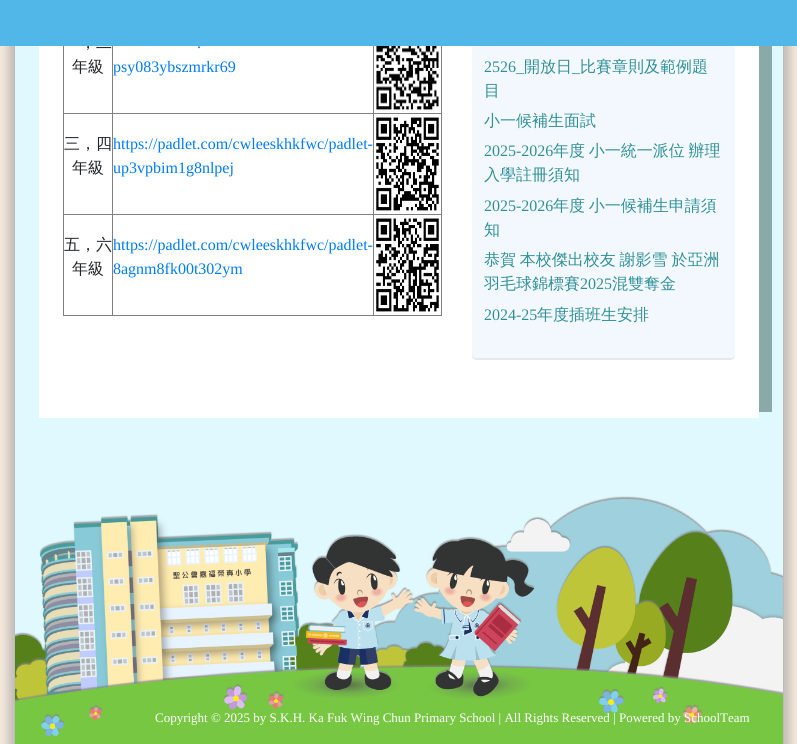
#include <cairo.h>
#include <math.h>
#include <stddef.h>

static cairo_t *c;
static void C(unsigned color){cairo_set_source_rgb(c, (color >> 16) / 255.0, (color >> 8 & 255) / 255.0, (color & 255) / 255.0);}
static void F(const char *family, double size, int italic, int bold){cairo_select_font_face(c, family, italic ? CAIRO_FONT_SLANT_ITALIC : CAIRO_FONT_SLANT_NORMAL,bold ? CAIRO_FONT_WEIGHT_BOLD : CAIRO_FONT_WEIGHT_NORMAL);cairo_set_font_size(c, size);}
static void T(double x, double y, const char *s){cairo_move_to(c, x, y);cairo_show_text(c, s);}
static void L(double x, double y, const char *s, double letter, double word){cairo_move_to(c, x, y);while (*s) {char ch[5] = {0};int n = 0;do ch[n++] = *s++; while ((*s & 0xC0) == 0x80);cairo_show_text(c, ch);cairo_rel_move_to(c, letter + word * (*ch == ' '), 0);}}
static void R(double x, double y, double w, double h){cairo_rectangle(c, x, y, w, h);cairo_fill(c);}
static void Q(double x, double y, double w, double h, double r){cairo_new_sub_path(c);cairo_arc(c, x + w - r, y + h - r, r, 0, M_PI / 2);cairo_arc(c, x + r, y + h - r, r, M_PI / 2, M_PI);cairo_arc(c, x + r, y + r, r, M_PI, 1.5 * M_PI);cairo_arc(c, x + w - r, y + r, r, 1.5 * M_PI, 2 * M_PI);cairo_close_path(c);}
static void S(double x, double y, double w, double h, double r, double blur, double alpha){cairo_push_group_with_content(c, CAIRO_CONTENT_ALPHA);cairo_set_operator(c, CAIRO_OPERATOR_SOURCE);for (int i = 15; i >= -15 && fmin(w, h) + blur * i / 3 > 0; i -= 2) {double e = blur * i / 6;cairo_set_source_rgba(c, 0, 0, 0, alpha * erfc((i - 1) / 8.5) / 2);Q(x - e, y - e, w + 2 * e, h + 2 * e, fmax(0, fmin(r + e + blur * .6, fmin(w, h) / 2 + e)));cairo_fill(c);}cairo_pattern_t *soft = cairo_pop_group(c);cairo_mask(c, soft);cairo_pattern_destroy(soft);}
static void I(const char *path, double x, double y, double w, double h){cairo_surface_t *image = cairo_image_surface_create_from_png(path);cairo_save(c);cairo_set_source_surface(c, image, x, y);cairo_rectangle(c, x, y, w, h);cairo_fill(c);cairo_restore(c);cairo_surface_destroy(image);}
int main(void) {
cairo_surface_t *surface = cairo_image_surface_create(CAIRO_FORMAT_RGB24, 797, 744);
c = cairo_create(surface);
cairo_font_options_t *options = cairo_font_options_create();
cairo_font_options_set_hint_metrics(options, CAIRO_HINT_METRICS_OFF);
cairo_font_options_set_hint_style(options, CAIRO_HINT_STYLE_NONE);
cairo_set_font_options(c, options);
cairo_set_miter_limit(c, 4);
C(0xfcefe0);
cairo_paint(c);
C(0xaaaaaa);
S(10,-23,778,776,0,7.5,1);
C(0xdff9ff);
R(15,46,768,623);
C(0x8aaaa9);
cairo_new_path(c);
cairo_move_to(c,52,-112);
cairo_line_to(c,52,-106);
cairo_line_to(c,759,-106);
cairo_line_to(c,759,412);
cairo_line_to(c,772,412);
cairo_line_to(c,772,-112);
cairo_close_path(c);
cairo_fill(c);
C(0xffffff);
R(39,46,720,372);
F("WenQuanYi Zen Hei Medium",16,0,0);
C(0x212529);
T(80,48,"，二");
C(0xe5e9ef);
cairo_new_path(c);
cairo_move_to(c,472,353);
cairo_line_to(c,472,355);
cairo_curve_to(c,472,358,474,360,477,360);
cairo_line_to(c,730,360);
cairo_curve_to(c,733,360,735,358,735,355);
cairo_line_to(c,735,353);
cairo_curve_to(c,735,356,733,358,730,358);
cairo_line_to(c,477,358);
cairo_curve_to(c,474,358,472,356,472,353);
cairo_close_path(c);
cairo_fill(c);
C(0xf3f8ff);
Q(472,-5,263,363,5);
cairo_fill(c);
C(0x51b7e8);
R(0,0,797,46);
C(0x808080);
R(441,46,1,270);
R(63,315,379,1);
R(63,46,1,270);
C(0x212529);
T(72,72,"年級");
C(0x808080);
R(373,113,69,1);
R(373,214,69,1);
R(373,214,1,102);
R(112,214,262,1);
R(373,113,1,102);
R(112,113,262,1);
R(112,214,1,102);
R(63,214,50,1);
R(112,113,1,102);
R(63,113,50,1);
R(112,46,1,68);
F("Liberation Serif",16,0,0);
C(0x007bff);
T(197,48,".");
T(113,72,"psy083ybszmrkr69");
C(0x808080);
R(373,46,1,68);
I("1.png",376,46,63,65);
F("WenQuanYi Zen Hei Medium",16,0,0);
C(0x212529);
T(64,149,"三，四");
T(72,173,"年級");
F("Liberation Serif",16,0,0);
C(0x007bff);
T(113,149,"https://padlet.com/cwleeskhkfwc/padlet-");
T(113,173,"up3vpbim1g8nlpej");
I("2.png",376,117,63,94);
F("WenQuanYi Zen Hei Medium",16,0,0);
C(0x212529);
T(64,250,"五，六");
T(72,274,"年級");
F("Liberation Serif",16,0,0);
C(0x007bff);
T(113,250,"https://padlet.com/cwleeskhkfwc/padlet-");
T(113,274,"8agnm8fk00t302ym");
I("3.png",376,218,63,94);
C(0x319096);
T(484,72,"2526_");
F("WenQuanYi Zen Hei Medium",16,0,0);
T(524,72,"開放日");
F("Liberation Serif",16,0,0);
T(572,72,"_");
F("WenQuanYi Zen Hei Medium",16,0,0);
T(580,72,"比賽章則及範例題");
T(484,96,"目");
T(484,126,"小一候補生面試");
F("Liberation Serif",16,0,0);
T(484,156,"2025-2026");
F("WenQuanYi Zen Hei Medium",16,0,0);
L(553,156,"年度 小一統一派位 辦理",0,-1);
T(484,180,"入學註冊須知");
F("Liberation Serif",16,0,0);
T(484,211,"2025-2026");
F("WenQuanYi Zen Hei Medium",16,0,0);
L(553,211,"年度 小一候補生申請須",0,-1);
T(484,235,"知");
L(484,265,"恭賀 本校傑出校友 謝影雪 於亞洲",0,-1);
T(484,289,"羽毛球錦標賽");
F("Liberation Serif",16,0,0);
T(580,289,"2025");
F("WenQuanYi Zen Hei Medium",16,0,0);
T(612,289,"混雙奪金");
F("Liberation Serif",16,0,0);
T(484,320,"2024-25");
F("WenQuanYi Zen Hei Medium",16,0,0);
T(537,320,"年度插班生安排");
I("4.png",15,496,768,248);
F("Liberation Serif",13,0,0);
C(0xffffff);
T(155,722,"Copyright © 2025 by S.K.H. Ka Fuk Wing Chun Primary School | All Rights Reserved | Powered by SchoolTeam");
cairo_surface_write_to_png(surface, "o.png");
cairo_font_options_destroy(options);
cairo_destroy(c);
cairo_surface_destroy(surface);
return 0;
}
